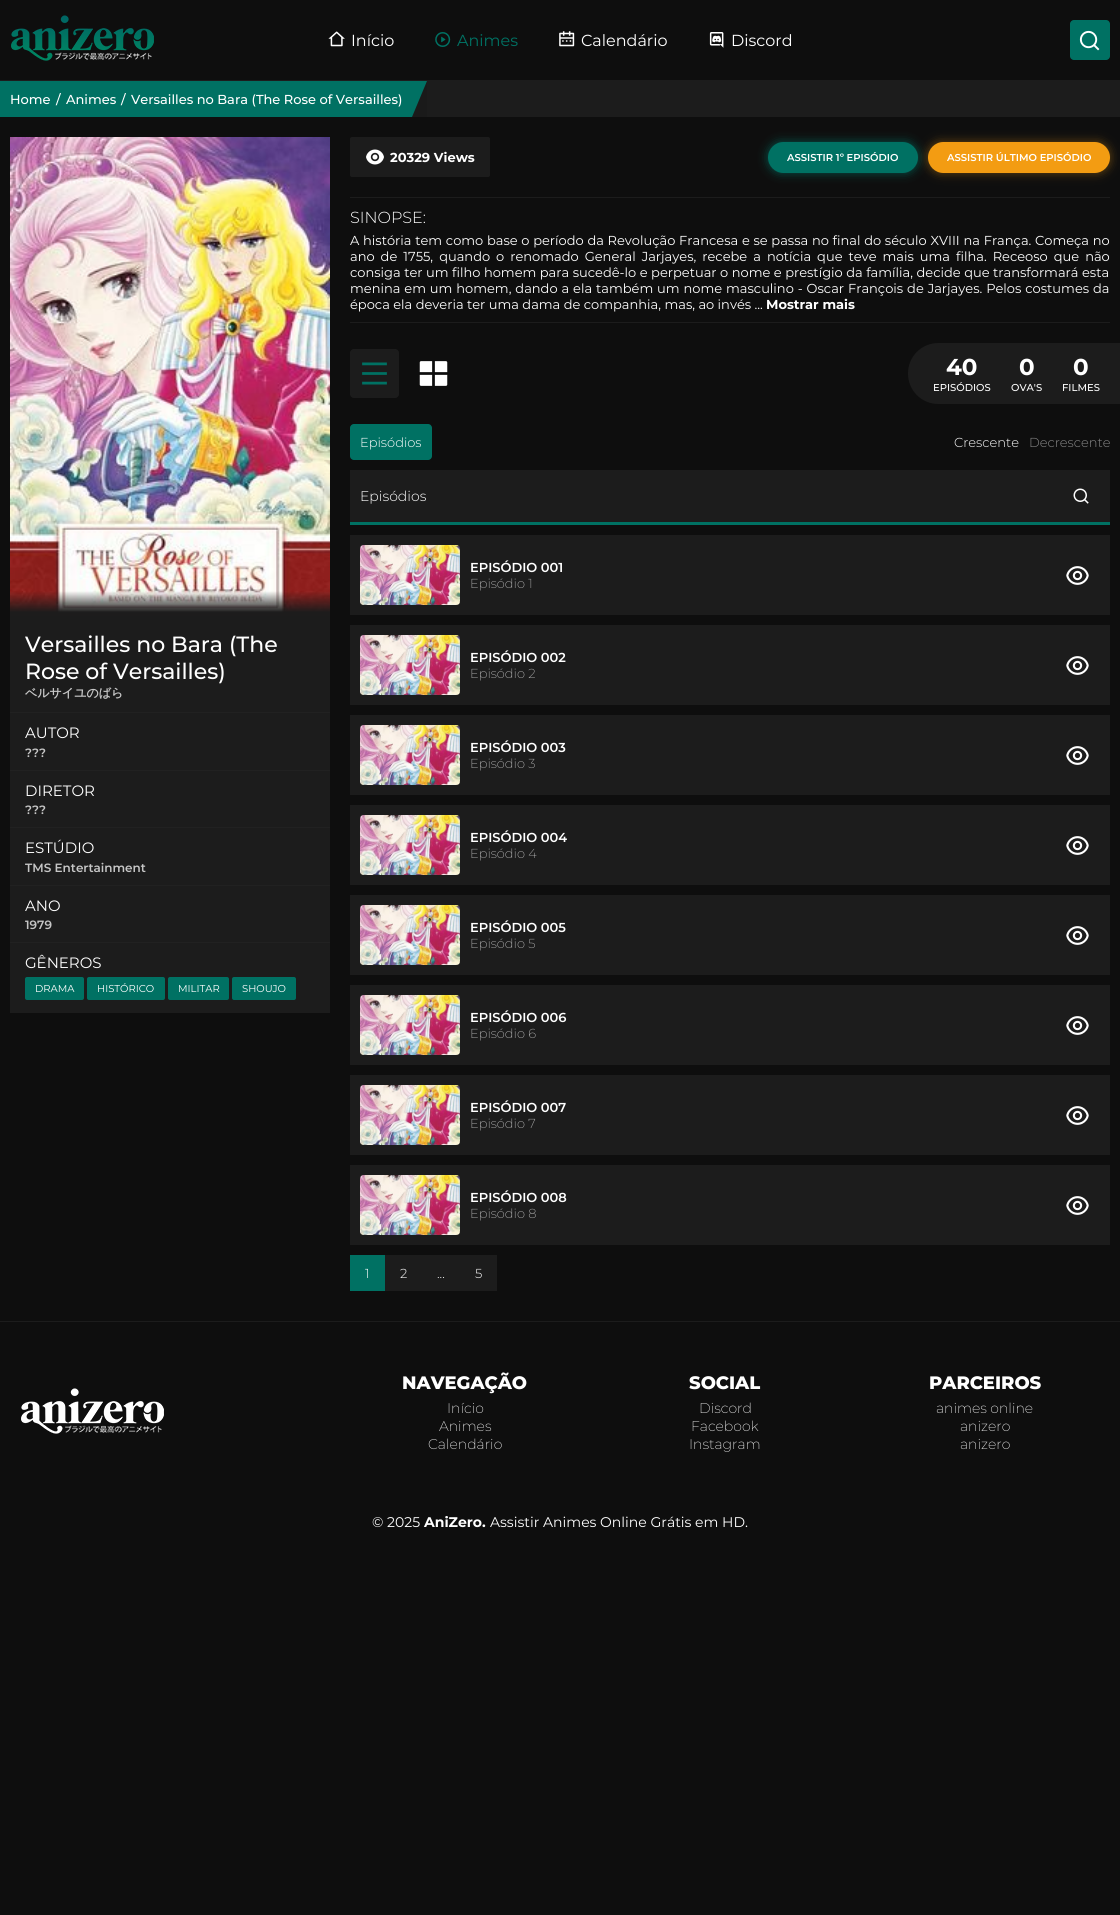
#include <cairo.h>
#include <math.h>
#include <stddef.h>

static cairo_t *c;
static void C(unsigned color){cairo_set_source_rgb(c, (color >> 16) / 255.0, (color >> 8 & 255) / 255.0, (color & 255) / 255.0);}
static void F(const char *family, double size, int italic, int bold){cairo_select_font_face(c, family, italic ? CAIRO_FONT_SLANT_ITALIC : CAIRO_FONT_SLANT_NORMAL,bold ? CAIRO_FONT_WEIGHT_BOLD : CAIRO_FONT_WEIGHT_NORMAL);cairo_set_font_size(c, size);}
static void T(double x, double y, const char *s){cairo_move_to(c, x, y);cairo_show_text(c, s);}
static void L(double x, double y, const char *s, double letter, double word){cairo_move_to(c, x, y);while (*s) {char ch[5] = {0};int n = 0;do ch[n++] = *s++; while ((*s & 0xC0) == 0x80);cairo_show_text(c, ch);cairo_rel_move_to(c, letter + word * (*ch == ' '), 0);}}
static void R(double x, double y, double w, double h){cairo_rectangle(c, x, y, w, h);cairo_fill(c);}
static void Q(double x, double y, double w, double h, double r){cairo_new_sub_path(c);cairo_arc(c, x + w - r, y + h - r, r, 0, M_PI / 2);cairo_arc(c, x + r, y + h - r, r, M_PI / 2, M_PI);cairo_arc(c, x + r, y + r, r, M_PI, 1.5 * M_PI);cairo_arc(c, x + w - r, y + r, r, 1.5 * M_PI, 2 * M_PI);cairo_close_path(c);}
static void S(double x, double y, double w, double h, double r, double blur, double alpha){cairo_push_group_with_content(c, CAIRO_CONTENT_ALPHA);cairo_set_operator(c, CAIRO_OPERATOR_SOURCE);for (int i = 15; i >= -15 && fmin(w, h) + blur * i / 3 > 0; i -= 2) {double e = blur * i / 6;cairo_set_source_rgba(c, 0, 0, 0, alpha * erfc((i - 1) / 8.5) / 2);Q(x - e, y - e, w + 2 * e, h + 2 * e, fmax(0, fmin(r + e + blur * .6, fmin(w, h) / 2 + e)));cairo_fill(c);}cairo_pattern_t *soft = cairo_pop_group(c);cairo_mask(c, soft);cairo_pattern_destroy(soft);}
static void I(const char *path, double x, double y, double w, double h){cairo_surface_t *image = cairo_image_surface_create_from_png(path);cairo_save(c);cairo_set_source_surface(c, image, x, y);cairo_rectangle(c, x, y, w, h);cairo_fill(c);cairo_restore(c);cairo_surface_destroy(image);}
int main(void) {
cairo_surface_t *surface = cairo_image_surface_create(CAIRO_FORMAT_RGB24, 1120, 1915);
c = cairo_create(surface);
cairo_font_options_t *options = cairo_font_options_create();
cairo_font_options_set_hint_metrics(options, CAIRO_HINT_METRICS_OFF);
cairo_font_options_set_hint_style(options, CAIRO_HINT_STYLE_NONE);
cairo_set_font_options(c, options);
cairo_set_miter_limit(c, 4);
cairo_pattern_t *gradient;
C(0x0e0e0e);
cairo_paint(c);
C(0x1c1c1c);
R(0,80,1120,1);
I("1.png",11,15,143,46);
I("2.png",328,31,17,16);
F("Montserrat",16,0,0);
C(0xffffff);
T(351,46,"Início");
I("3.png",435,32,16,15);
C(0x007163);
T(457,46,"Animes");
I("4.png",559,31,16,16);
C(0xffffff);
T(581,46,"Calendário");
I("5.png",709,32,15,16);
T(731,46,"Discord");
C(0x007163);
Q(1070,20,40,40,4);
cairo_fill(c);
I("6.png",1079,30,21,21);
C(0x1c1c1c);
R(427,81,693,36);
C(0x007163);
R(0,81,427,36);
F("Montserrat Medium",13,0,0);
C(0xffffff);
T(10,104,"Home");
T(56,104,"/");
T(66,104,"Animes");
T(121,104,"/");
T(131,104,"Versailles no Bara (The Rose of Versailles)");
C(0x1a1a1a);
cairo_new_path(c);
cairo_move_to(c,427,117);
cairo_line_to(c,412,117);
cairo_line_to(c,427,81);
cairo_close_path(c);
cairo_fill(c);
C(0x1c1c1c);
R(10,621,320,392);
I("7.png",10,137,320,479);
gradient = cairo_pattern_create_linear(170,591,170,621);
cairo_pattern_add_color_stop_rgba(gradient,0,0.11,0.11,0.11,0);
cairo_pattern_add_color_stop_rgba(gradient,.7,0.11,0.11,0.11,.99);
cairo_pattern_add_color_stop_rgba(gradient,.99,0.11,0.11,0.11,1);
cairo_pattern_add_color_stop_rgba(gradient,1,0.11,0.11,0.11,1);
cairo_set_source(c,gradient);
cairo_pattern_destroy(gradient);
R(10,591,320,30);
F("Montserrat Medium",22,0,0);
C(0xffffff);
T(25,652,"Versailles no Bara (The");
T(25,679,"Rose of Versailles)");
C(0x212121);
R(10,712,320,1);
F("WenQuanYi Zen Hei",12,0,1);
C(0xc6c6c6);
T(25,697,"ベルサイユのばら");
C(0x212121);
R(10,770,320,1);
F("Montserrat",15,0,0);
C(0xffffff);
T(25,738,"AUTOR");
F("Montserrat SemiBold",12,0,0);
C(0xc6c6c6);
T(25,757,"?\077?");
C(0x212121);
R(10,827,320,1);
F("Montserrat",15,0,0);
C(0xffffff);
T(25,796,"DIRETOR");
F("Montserrat SemiBold",12,0,0);
C(0xc6c6c6);
T(25,814,"?\077?");
C(0x212121);
R(10,885,320,1);
F("Montserrat",15,0,0);
C(0xffffff);
T(25,853,"ESTÚDIO");
F("Montserrat SemiBold",12,0,0);
C(0xc6c6c6);
T(25,872,"TMS Entertainment");
C(0x212121);
R(10,942,320,1);
F("Montserrat",15,0,0);
C(0xffffff);
T(25,911,"ANO");
F("Montserrat SemiBold",12,0,0);
C(0xc6c6c6);
T(25,929,"1979");
F("Montserrat",15,0,0);
C(0xffffff);
T(25,968,"GÊNEROS");
C(0x007163);
Q(25,977,59,23,2);
cairo_fill(c);
F("Montserrat",10,0,0);
C(0xffffff);
T(35,992,"DRAMA");
C(0x007163);
Q(87,977,78,23,2);
cairo_fill(c);
C(0xffffff);
T(97,992,"HISTÓRICO");
C(0x007163);
Q(168,977,61,23,2);
cairo_fill(c);
C(0xffffff);
T(178,992,"MILITAR");
C(0x007163);
Q(232,977,64,23,2);
cairo_fill(c);
C(0xffffff);
T(242,992,"SHOUJO");
C(0x1c1c1c);
Q(350,137,140,40,2);
cairo_fill(c);
I("8.png",366,149,18,16);
F("Montserrat",13,0,1);
C(0xffffff);
T(390,162,"20329 Views");
C(0x007163);
S(768,142,150,31,15.5,5,.7);
C(0x007163);
Q(768,142,150,31,15.5);
cairo_fill(c);
F("Montserrat SemiBold",10,0,0);
C(0xffffff);
T(787,161,"ASSISTIR 1º EPISÓDIO");
C(0xf39c12);
S(928,142,182,31,15.5,5,.4);
C(0xf39c12);
Q(928,142,182,31,15.5);
cairo_fill(c);
C(0xffffff);
T(947,161,"ASSISTIR ÚLTIMO EPISÓDIO");
C(0x1c1c1c);
R(350,197,760,1);
R(350,322,760,1);
F("Montserrat Light",16,0,0);
C(0xffffff);
T(350,223,"SINOPSE:");
F("Montserrat",13,0,0);
L(350,245,"A história tem como base o período da Revolução Francesa e se passa no final do século XVIII na França. Começa no",0,.3);
L(350,261,"ano de 1755, quando o renomado General Jarjayes, recebe a notícia que teve mais uma filha. Receoso que não",0,2.6);
L(350,277,"consiga ter um filho homem para sucedê-lo e perpetuar o nome e prestígio da família, decide que transformará esta",0,.1);
L(350,293,"menina em um homem, dando a ela também um nome masculino - Oscar François de Jarjayes. Pelos costumes da",0,.5);
T(350,309,"época ela deveria ter uma dama de companhia, mas, ao invés ...");
F("Montserrat",13,0,1);
T(766,309,"Mostrar mais");
C(0x1c1c1c);
Q(350,349,49,49,4);
cairo_fill(c);
I("9.png",362,362,25,23);
I("10.png",419,361,29,25);
cairo_new_path(c);
cairo_move_to(c,938.5,343);
cairo_line_to(c,1110,343);
cairo_line_to(c,1110,404);
cairo_line_to(c,938.5,404);
cairo_curve_to(c,921.5,404,908,390.5,908,373.5);
cairo_curve_to(c,908,356.5,921.5,343,938.5,343);
cairo_close_path(c);
cairo_fill(c);
F("Montserrat",23,0,1);
C(0xffffff);
T(946,375,"40");
F("Montserrat Medium",10,0,0);
T(933,391,"EPISÓDIOS");
F("Montserrat",23,0,1);
T(1019,375,"0");
F("Montserrat Medium",10,0,0);
T(1011,391,"OVA'S");
F("Montserrat",23,0,1);
T(1073,375,"0");
F("Montserrat Medium",10,0,0);
T(1062,391,"FILMES");
C(0x1c1c1c);
R(1110,343,10,61);
C(0x007163);
Q(350,424,82,36,4);
cairo_fill(c);
F("Montserrat Light",13,0,0);
C(0xffffff);
T(360,447,"Episódios");
T(954,447,"Crescente");
C(0x878787);
T(1029,447,"Decrescente");
C(0x1c1c1c);
R(350,470,760,52);
C(0x007163);
R(350,522,760,3);
F("Montserrat Light",14,0,0);
C(0xffffff);
T(360,501,"Episódios");
I("11.png",1073,488,16,16);
C(0x1c1c1c);
R(350,535,760,80);
I("12.png",360,545,100,60);
F("Montserrat SemiBold",13,0,0);
C(0xffffff);
T(470,572,"EPISÓDIO 001");
F("Montserrat ExtraLight",13,0,0);
C(0xc6c6c6);
T(470,588,"Episódio 1");
I("13.png",1066,566,23,19);
C(0x1c1c1c);
R(350,625,760,80);
I("12.png",360,635,100,60);
F("Montserrat SemiBold",13,0,0);
C(0xffffff);
T(470,662,"EPISÓDIO 002");
F("Montserrat ExtraLight",13,0,0);
C(0xc6c6c6);
T(470,678,"Episódio 2");
I("13.png",1066,656,23,19);
C(0x1c1c1c);
R(350,715,760,80);
I("12.png",360,725,100,60);
F("Montserrat SemiBold",13,0,0);
C(0xffffff);
T(470,752,"EPISÓDIO 003");
F("Montserrat ExtraLight",13,0,0);
C(0xc6c6c6);
T(470,768,"Episódio 3");
I("13.png",1066,746,23,19);
C(0x1c1c1c);
R(350,805,760,80);
I("12.png",360,815,100,60);
F("Montserrat SemiBold",13,0,0);
C(0xffffff);
T(470,842,"EPISÓDIO 004");
F("Montserrat ExtraLight",13,0,0);
C(0xc6c6c6);
T(470,858,"Episódio 4");
I("13.png",1066,836,23,19);
C(0x1c1c1c);
R(350,895,760,80);
I("12.png",360,905,100,60);
F("Montserrat SemiBold",13,0,0);
C(0xffffff);
T(470,932,"EPISÓDIO 005");
F("Montserrat ExtraLight",13,0,0);
C(0xc6c6c6);
T(470,948,"Episódio 5");
I("13.png",1066,926,23,19);
C(0x1c1c1c);
R(350,985,760,80);
I("12.png",360,995,100,60);
F("Montserrat SemiBold",13,0,0);
C(0xffffff);
T(470,1022,"EPISÓDIO 006");
F("Montserrat ExtraLight",13,0,0);
C(0xc6c6c6);
T(470,1038,"Episódio 6");
I("13.png",1066,1016,23,19);
C(0x1c1c1c);
R(350,1075,760,80);
I("12.png",360,1085,100,60);
F("Montserrat SemiBold",13,0,0);
C(0xffffff);
T(470,1112,"EPISÓDIO 007");
F("Montserrat ExtraLight",13,0,0);
C(0xc6c6c6);
T(470,1128,"Episódio 7");
I("13.png",1066,1106,23,19);
C(0x1c1c1c);
R(350,1165,760,80);
I("12.png",360,1175,100,60);
F("Montserrat SemiBold",13,0,0);
C(0xffffff);
T(470,1202,"EPISÓDIO 008");
F("Montserrat ExtraLight",13,0,0);
C(0xc6c6c6);
T(470,1218,"Episódio 8");
I("13.png",1066,1196,23,19);
C(0x007163);
R(350,1255,35,36);
F("Montserrat Light",13,0,0);
C(0xffffff);
T(365,1278,"1");
C(0x1c1c1c);
R(385,1255,112,36);
C(0xffffff);
T(400,1278,"2");
T(437,1278,"...");
T(475,1278,"5");
C(0x1c1c1c);
R(0,1321,1120,1);
I("14.png",21,1388,143,46);
F("Montserrat ExtraBold",18,0,0);
C(0xffffff);
T(402,1389,"NAVEGAÇÃO");
F("Montserrat ExtraLight",14,0,0);
T(447,1413,"Início");
T(439,1431,"Animes");
T(428,1449,"Calendário");
F("Montserrat ExtraBold",18,0,0);
T(689,1389,"SOCIAL");
F("Montserrat ExtraLight",14,0,0);
T(699,1413,"Discord");
T(691,1431,"Facebook");
T(689,1449,"Instagram");
F("Montserrat ExtraBold",18,0,0);
T(929,1389,"PARCEIROS");
F("Montserrat ExtraLight",14,0,0);
T(936,1413,"animes online");
T(960,1431,"anizero");
T(960,1449,"anizero");
F("Montserrat",14,0,0);
T(372,1527,"© 2025");
F("Montserrat",14,0,1);
T(424,1527,"AniZero.");
F("Montserrat",14,0,0);
T(490,1527,"Assistir Animes Online Grátis em HD.");
cairo_surface_write_to_png(surface, "o.png");
cairo_font_options_destroy(options);
cairo_destroy(c);
cairo_surface_destroy(surface);
return 0;
}
